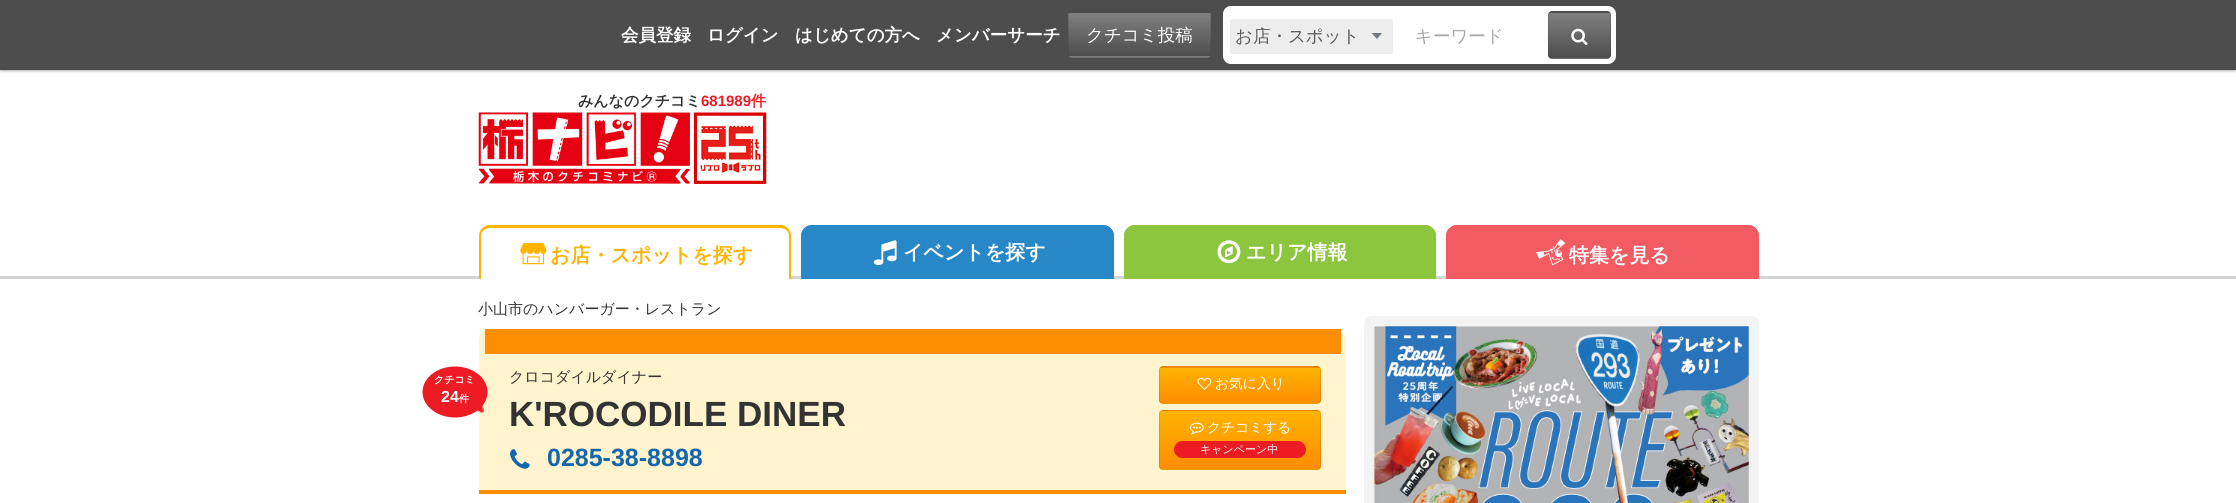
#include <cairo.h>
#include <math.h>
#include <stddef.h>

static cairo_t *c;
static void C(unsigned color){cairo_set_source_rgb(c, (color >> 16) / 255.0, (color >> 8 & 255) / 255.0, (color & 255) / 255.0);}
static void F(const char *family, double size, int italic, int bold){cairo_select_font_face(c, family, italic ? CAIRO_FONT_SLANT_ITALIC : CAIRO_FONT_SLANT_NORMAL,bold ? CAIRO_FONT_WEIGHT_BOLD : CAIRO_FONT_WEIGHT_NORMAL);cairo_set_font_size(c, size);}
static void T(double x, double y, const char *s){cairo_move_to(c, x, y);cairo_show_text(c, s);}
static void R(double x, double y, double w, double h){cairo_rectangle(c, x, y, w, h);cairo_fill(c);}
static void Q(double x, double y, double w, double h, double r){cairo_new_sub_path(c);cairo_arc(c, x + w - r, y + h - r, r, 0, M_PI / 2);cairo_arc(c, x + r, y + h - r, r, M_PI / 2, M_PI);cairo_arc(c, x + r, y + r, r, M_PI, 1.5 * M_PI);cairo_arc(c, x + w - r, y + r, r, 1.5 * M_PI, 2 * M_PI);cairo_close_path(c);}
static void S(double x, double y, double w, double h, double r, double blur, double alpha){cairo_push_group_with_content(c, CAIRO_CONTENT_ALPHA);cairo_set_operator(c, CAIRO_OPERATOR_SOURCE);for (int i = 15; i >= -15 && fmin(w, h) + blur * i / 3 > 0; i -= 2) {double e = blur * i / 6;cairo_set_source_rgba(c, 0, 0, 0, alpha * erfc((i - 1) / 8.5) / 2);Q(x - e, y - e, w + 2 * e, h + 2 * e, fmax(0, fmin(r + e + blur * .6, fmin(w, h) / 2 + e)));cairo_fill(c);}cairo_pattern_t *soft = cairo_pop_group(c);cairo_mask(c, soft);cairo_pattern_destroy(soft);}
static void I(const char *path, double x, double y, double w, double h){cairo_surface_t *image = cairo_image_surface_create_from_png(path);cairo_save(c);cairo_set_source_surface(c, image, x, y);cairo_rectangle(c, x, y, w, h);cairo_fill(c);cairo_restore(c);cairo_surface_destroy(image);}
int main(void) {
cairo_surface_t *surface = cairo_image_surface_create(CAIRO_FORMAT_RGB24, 2236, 503);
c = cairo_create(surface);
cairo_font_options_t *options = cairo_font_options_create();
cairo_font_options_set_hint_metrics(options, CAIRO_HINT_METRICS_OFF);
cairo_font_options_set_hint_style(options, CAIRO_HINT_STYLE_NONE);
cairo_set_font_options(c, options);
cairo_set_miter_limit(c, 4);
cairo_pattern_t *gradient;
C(0xffffff);
cairo_paint(c);
C(0x000000);
S(1,1,2234,68,0,2,1);
C(0x4d4d4d);
R(0,0,2236,70);
F("WenQuanYi Zen Hei",17.5,0,1);
C(0xffffff);
T(621,41,"会員登録");
T(707,41,"ログイン");
T(795,41,"はじめての方へ");
T(936,41,"メンバーサーチ");
cairo_save(c);
Q(1068,11,143,47,4);
cairo_clip(c);
gradient = cairo_pattern_create_linear(1139,12,1139,56);
cairo_pattern_add_color_stop_rgba(gradient,0,0.506,0.506,0.506,1);
cairo_pattern_add_color_stop_rgba(gradient,1,0.302,0.302,0.302,1);
cairo_set_source(c,gradient);
cairo_pattern_destroy(gradient);
R(1068,13,143,43);
gradient = cairo_pattern_create_linear(1139,56,1139,100);
cairo_pattern_add_color_stop_rgba(gradient,0,0.506,0.506,0.506,1);
cairo_pattern_add_color_stop_rgba(gradient,1,0.302,0.302,0.302,1);
cairo_set_source(c,gradient);
cairo_pattern_destroy(gradient);
R(1068,56,143,2);
cairo_restore(c);
Q(1068.5,11.5,142,46,3.5);
cairo_set_source_rgba(c,0,0,0,0.1);
cairo_set_line_width(c,1);
cairo_stroke(c);
F("WenQuanYi Zen Hei Medium",17.5,0,0);
C(0xffffff);
T(1086,41,"クチコミ投稿");
Q(1223,6,393,58,8);
cairo_fill(c);
C(0xededed);
Q(1230,19,163,35,2.5);
cairo_fill(c);
cairo_save(c);
cairo_rectangle(c,1371,33,12,6);
cairo_clip(c);
C(0x717a83);
cairo_new_path(c);
cairo_move_to(c,1382.5,32.5);
cairo_line_to(c,1377,39);
cairo_line_to(c,1371,32.5);
cairo_close_path(c);
cairo_fill(c);
cairo_restore(c);
Q(1230.5,19.5,162,34,2);
cairo_stroke(c);
C(0x5a5a5a);
T(1235,42,"お店・スポット");
C(0xa7a7a7);
T(1415,42,"キーワード");
cairo_save(c);
Q(1548,11,63,48,4);
cairo_clip(c);
gradient = cairo_pattern_create_linear(1579,-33,1579,13);
cairo_pattern_add_color_stop_rgba(gradient,0,0.506,0.506,0.506,1);
cairo_pattern_add_color_stop_rgba(gradient,1,0.302,0.302,0.302,1);
cairo_set_source(c,gradient);
cairo_pattern_destroy(gradient);
R(1548,11,63,2);
gradient = cairo_pattern_create_linear(1579,12,1579,58);
cairo_pattern_add_color_stop_rgba(gradient,0,0.506,0.506,0.506,1);
cairo_pattern_add_color_stop_rgba(gradient,1,0.302,0.302,0.302,1);
cairo_set_source(c,gradient);
cairo_pattern_destroy(gradient);
R(1548,13,63,45);
gradient = cairo_pattern_create_linear(1579,58,1579,103);
cairo_pattern_add_color_stop_rgba(gradient,0,0.506,0.506,0.506,1);
cairo_pattern_add_color_stop_rgba(gradient,1,0.302,0.302,0.302,1);
cairo_set_source(c,gradient);
cairo_pattern_destroy(gradient);
R(1548,58,63,1);
cairo_restore(c);
Q(1548.5,11.5,62,47,3.5);
cairo_set_source_rgba(c,0,0,0,0.1);
cairo_stroke(c);
I("1.png",1571,28,17,17);
F("WenQuanYi Zen Hei",15,0,1);
C(0x333333);
T(578,106,"みんなのクチコミ");
F("Liberation Sans",15,0,1);
C(0xed1c24);
T(701,106,"681989");
F("WenQuanYi Zen Hei",15,0,1);
T(751,106,"件");
I("2.png",478,112,289,72);
C(0xd5d5d5);
R(0,276,2236,3);
C(0xffffff);
cairo_new_path(c);
cairo_move_to(c,490,225);
cairo_line_to(c,780,225);
cairo_curve_to(c,786,225,791,230,791,236);
cairo_line_to(c,791,279);
cairo_line_to(c,479,279);
cairo_line_to(c,479,236);
cairo_curve_to(c,479,230,484,225,490,225);
cairo_close_path(c);
cairo_fill(c);
C(0xffb400);
cairo_set_fill_rule(c,CAIRO_FILL_RULE_EVEN_ODD);
cairo_new_path(c);
cairo_move_to(c,490,225);
cairo_line_to(c,780,225);
cairo_curve_to(c,786,225,791,230,791,236);
cairo_line_to(c,791,279);
cairo_line_to(c,479,279);
cairo_line_to(c,479,236);
cairo_curve_to(c,479,230,484,225,490,225);
cairo_close_path(c);
cairo_move_to(c,490,228);
cairo_line_to(c,780,228);
cairo_curve_to(c,785,228,789,231,789,236);
cairo_line_to(c,789,279);
cairo_line_to(c,481,279);
cairo_line_to(c,481,236);
cairo_curve_to(c,481,231,485,228,490,228);
cairo_close_path(c);
cairo_fill(c);
I("3.png",520,243,27,22);
F("WenQuanYi Zen Hei",20,0,1);
T(550,262,"お店・スポットを探す");
C(0x2888c7);
cairo_new_path(c);
cairo_move_to(c,812,225);
cairo_line_to(c,1103,225);
cairo_curve_to(c,1109,225,1114,230,1114,236);
cairo_line_to(c,1114,279);
cairo_line_to(c,801,279);
cairo_line_to(c,801,236);
cairo_curve_to(c,801,230,806,225,812,225);
cairo_close_path(c);
cairo_fill(c);
cairo_new_path(c);
cairo_move_to(c,812,225);
cairo_line_to(c,1102,225);
cairo_curve_to(c,1109,225,1114,230,1114,236);
cairo_line_to(c,1114,279);
cairo_line_to(c,801,279);
cairo_line_to(c,801,236);
cairo_curve_to(c,801,230,806,225,812,225);
cairo_close_path(c);
cairo_move_to(c,812,228);
cairo_line_to(c,1102,228);
cairo_curve_to(c,1107,228,1111,231,1111,236);
cairo_line_to(c,1111,279);
cairo_line_to(c,804,279);
cairo_line_to(c,804,236);
cairo_curve_to(c,804,231,808,228,812,228);
cairo_close_path(c);
cairo_fill(c);
I("4.png",873,240,24,26);
C(0xffffff);
T(903,259,"イベントを探す");
C(0x8cc63f);
cairo_new_path(c);
cairo_move_to(c,1135,225);
cairo_line_to(c,1425,225);
cairo_curve_to(c,1431,225,1436,230,1436,236);
cairo_line_to(c,1436,279);
cairo_line_to(c,1124,279);
cairo_line_to(c,1124,236);
cairo_curve_to(c,1124,230,1129,225,1135,225);
cairo_close_path(c);
cairo_fill(c);
cairo_new_path(c);
cairo_move_to(c,1135,225);
cairo_line_to(c,1425,225);
cairo_curve_to(c,1431,225,1436,230,1436,236);
cairo_line_to(c,1436,279);
cairo_line_to(c,1124,279);
cairo_line_to(c,1124,236);
cairo_curve_to(c,1124,230,1129,225,1135,225);
cairo_close_path(c);
cairo_move_to(c,1135,228);
cairo_line_to(c,1425,228);
cairo_curve_to(c,1430,228,1434,231,1434,236);
cairo_line_to(c,1434,279);
cairo_line_to(c,1126,279);
cairo_line_to(c,1126,236);
cairo_curve_to(c,1126,231,1130,228,1135,228);
cairo_close_path(c);
cairo_fill(c);
I("5.png",1217,240,24,24);
C(0xffffff);
T(1246,259,"エリア情報");
C(0xf25b61);
cairo_new_path(c);
cairo_move_to(c,1457,225);
cairo_line_to(c,1748,225);
cairo_curve_to(c,1754,225,1759,230,1759,236);
cairo_line_to(c,1759,279);
cairo_line_to(c,1446,279);
cairo_line_to(c,1446,236);
cairo_curve_to(c,1446,230,1451,225,1457,225);
cairo_close_path(c);
cairo_fill(c);
cairo_new_path(c);
cairo_move_to(c,1458,225);
cairo_line_to(c,1748,225);
cairo_curve_to(c,1754,225,1759,230,1759,236);
cairo_line_to(c,1759,279);
cairo_line_to(c,1446,279);
cairo_line_to(c,1446,236);
cairo_curve_to(c,1446,230,1451,225,1458,225);
cairo_close_path(c);
cairo_move_to(c,1458,228);
cairo_line_to(c,1748,228);
cairo_curve_to(c,1752,228,1756,231,1756,236);
cairo_line_to(c,1756,279);
cairo_line_to(c,1449,279);
cairo_line_to(c,1449,236);
cairo_curve_to(c,1449,231,1453,228,1458,228);
cairo_close_path(c);
cairo_fill(c);
I("6.png",1536,239,30,27);
C(0xffffff);
T(1569,262,"特集を見る");
F("WenQuanYi Zen Hei Medium",15,0,0);
C(0x333333);
T(478,314,"小山市のハンバーガー・レストラン");
C(0xfff4ce);
cairo_new_path(c);
cairo_move_to(c,490,329);
cairo_line_to(c,1335,329);
cairo_curve_to(c,1341,329,1346,334,1346,340);
cairo_line_to(c,1346,494);
cairo_line_to(c,479,494);
cairo_line_to(c,479,340);
cairo_curve_to(c,479,334,484,329,490,329);
cairo_close_path(c);
cairo_fill(c);
C(0xff8d00);
R(485,329,856,25);
R(479,490,867,4);
C(0xed1c24);
cairo_new_path(c);
cairo_move_to(c,455,366.5);
cairo_curve_to(c,473,366.5,487.5,378,487.5,392);
cairo_curve_to(c,487.5,406,473,417.5,455,417.5);
cairo_curve_to(c,437,417.5,422.5,406,422.5,392);
cairo_curve_to(c,422.5,378,437,366.5,455,366.5);
cairo_close_path(c);
cairo_fill(c);
F("WenQuanYi Zen Hei",10,0,1);
C(0xffffff);
T(434,383,"クチコミ");
F("Liberation Sans",16,0,1);
T(441,402,"24");
F("WenQuanYi Zen Hei",10,0,1);
T(459,402,"件");
I("7.png",476,405,8,8);
F("WenQuanYi Zen Hei Medium",15,0,0);
C(0x333333);
T(509,382,"クロコダイルダイナー");
F("Liberation Sans",35,0,1);
T(509,426,"K'ROCODILE DINER");
I("8.png",510,449,20,20);
F("Liberation Sans",25,0,1);
C(0x1467ad);
T(547,466,"0285-38-8898");
cairo_save(c);
cairo_set_fill_rule(c,CAIRO_FILL_RULE_WINDING);
Q(1159,366,162,38,4);
cairo_clip(c);
gradient = cairo_pattern_create_linear(1240,333,1240,368);
cairo_pattern_add_color_stop_rgba(gradient,0,1,0.706,0,1);
cairo_pattern_add_color_stop_rgba(gradient,1,1,0.549,0,1);
cairo_set_source(c,gradient);
cairo_pattern_destroy(gradient);
R(1159,366,162,2);
gradient = cairo_pattern_create_linear(1240,368,1240,403);
cairo_pattern_add_color_stop_rgba(gradient,0,1,0.706,0,1);
cairo_pattern_add_color_stop_rgba(gradient,1,1,0.549,0,1);
cairo_set_source(c,gradient);
cairo_pattern_destroy(gradient);
R(1159,368,162,35);
gradient = cairo_pattern_create_linear(1240,403,1240,438);
cairo_pattern_add_color_stop_rgba(gradient,0,1,0.706,0,1);
cairo_pattern_add_color_stop_rgba(gradient,1,1,0.549,0,1);
cairo_set_source(c,gradient);
cairo_pattern_destroy(gradient);
R(1159,403,162,1);
cairo_restore(c);
Q(1159.5,366.5,161,37,3.5);
cairo_set_source_rgba(c,0,0,0,0.1);
cairo_stroke(c);
I("9.png",1197,378,15,12);
F("WenQuanYi Zen Hei Medium",13.75,0,0);
C(0xffffff);
T(1215,388,"お気に入り");
cairo_save(c);
cairo_set_fill_rule(c,CAIRO_FILL_RULE_WINDING);
Q(1159,410,162,60,4);
cairo_clip(c);
gradient = cairo_pattern_create_linear(1240,354,1240,411);
cairo_pattern_add_color_stop_rgba(gradient,0,1,0.706,0,1);
cairo_pattern_add_color_stop_rgba(gradient,1,1,0.549,0,1);
cairo_set_source(c,gradient);
cairo_pattern_destroy(gradient);
R(1159,410,162,1);
gradient = cairo_pattern_create_linear(1240,411,1240,469);
cairo_pattern_add_color_stop_rgba(gradient,0,1,0.706,0,1);
cairo_pattern_add_color_stop_rgba(gradient,1,1,0.549,0,1);
cairo_set_source(c,gradient);
cairo_pattern_destroy(gradient);
R(1159,411,162,58);
gradient = cairo_pattern_create_linear(1240,469,1240,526);
cairo_pattern_add_color_stop_rgba(gradient,0,1,0.706,0,1);
cairo_pattern_add_color_stop_rgba(gradient,1,1,0.549,0,1);
cairo_set_source(c,gradient);
cairo_pattern_destroy(gradient);
R(1159,469,162,1);
cairo_restore(c);
Q(1159.5,410.5,161,59,3.5);
cairo_set_source_rgba(c,0,0,0,0.1);
cairo_stroke(c);
I("10.png",1190,422,14,13);
C(0xffffff);
T(1207,432,"クチコミする");
C(0xed1c24);
Q(1174,441,132,17,8.5);
cairo_fill(c);
F("WenQuanYi Zen Hei Medium",11,0,0);
C(0xffffff);
T(1200,453,"キャンペーン中");
C(0xf3f3f3);
Q(1364,316,395,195,8);
cairo_fill(c);
I("11.png",1373,326,376,177);
cairo_surface_write_to_png(surface, "o.png");
cairo_font_options_destroy(options);
cairo_destroy(c);
cairo_surface_destroy(surface);
return 0;
}
